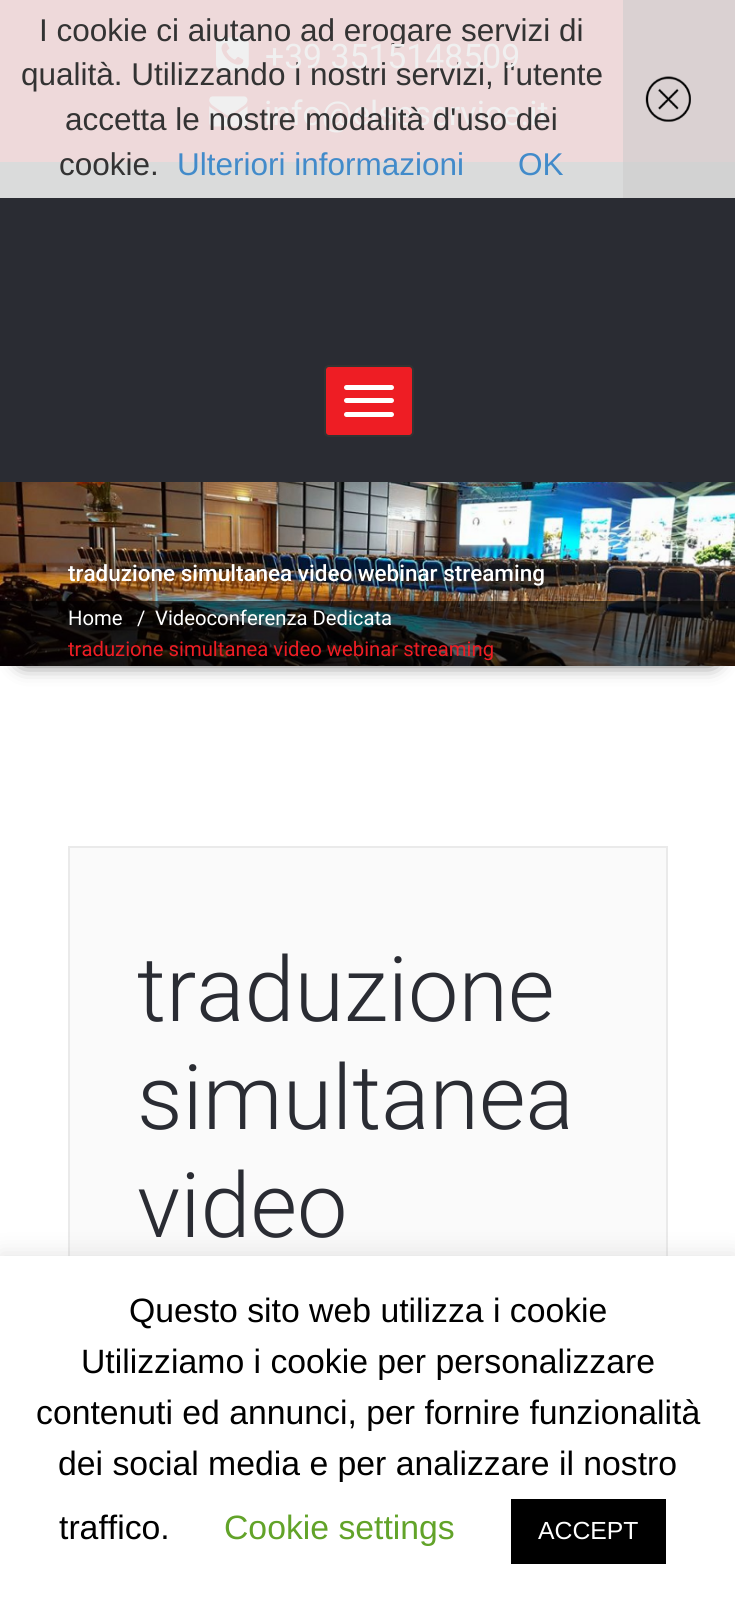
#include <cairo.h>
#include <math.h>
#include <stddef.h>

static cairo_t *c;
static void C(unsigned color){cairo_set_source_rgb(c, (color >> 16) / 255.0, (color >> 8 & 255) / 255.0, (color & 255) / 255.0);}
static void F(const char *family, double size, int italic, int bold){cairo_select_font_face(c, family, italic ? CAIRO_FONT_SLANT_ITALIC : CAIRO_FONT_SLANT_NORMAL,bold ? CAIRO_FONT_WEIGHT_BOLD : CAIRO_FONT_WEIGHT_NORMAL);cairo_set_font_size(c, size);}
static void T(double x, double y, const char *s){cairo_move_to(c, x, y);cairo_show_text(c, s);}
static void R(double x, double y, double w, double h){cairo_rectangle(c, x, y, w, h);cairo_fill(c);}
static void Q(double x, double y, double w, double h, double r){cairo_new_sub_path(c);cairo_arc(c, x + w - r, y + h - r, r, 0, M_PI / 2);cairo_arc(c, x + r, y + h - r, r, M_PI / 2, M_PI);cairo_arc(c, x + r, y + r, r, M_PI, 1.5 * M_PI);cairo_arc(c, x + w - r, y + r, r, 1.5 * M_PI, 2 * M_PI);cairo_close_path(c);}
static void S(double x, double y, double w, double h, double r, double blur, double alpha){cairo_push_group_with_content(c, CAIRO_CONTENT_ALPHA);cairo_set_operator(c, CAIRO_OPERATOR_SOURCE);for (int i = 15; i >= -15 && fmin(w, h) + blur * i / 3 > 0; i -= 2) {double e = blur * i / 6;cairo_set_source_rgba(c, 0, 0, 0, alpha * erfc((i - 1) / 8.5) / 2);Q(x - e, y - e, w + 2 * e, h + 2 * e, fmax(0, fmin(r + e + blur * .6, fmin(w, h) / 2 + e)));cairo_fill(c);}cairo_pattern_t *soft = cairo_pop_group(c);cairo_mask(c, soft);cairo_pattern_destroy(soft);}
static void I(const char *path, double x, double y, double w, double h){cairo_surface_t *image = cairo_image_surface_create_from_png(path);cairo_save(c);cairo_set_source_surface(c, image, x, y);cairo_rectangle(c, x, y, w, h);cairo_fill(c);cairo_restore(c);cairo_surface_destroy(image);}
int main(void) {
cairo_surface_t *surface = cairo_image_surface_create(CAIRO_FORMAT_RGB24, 735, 1602);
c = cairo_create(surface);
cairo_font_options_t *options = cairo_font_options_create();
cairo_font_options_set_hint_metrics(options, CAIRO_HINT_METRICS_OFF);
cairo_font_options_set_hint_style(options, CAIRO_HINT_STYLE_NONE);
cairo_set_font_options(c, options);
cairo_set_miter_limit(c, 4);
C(0xffffff);
cairo_paint(c);
C(0xeed9da);
R(0,0,623,162);
I("2.png",216,37,33,34);
F("Liberation Sans",31.5,0,0);
C(0x333333);
T(39,41,"I cookie ci aiutano ad erogare servizi di");
T(21,85,"qualità. Utilizzando i nostri servizi, l'utente");
I("3.png",209,96,39,31);
F("Roboto",33.75,0,0);
C(0xf0f0f0);
T(264,125,"info@elseservice.it");
F("Liberation Sans",31.5,0,0);
C(0x333333);
T(65,130,"accetta le nostre modalità d'uso dei");
C(0xdadbdb);
R(0,162,623,36);
C(0x333333);
T(59,175,"cookie.");
C(0x428bca);
T(177,175,"Ulteriori informazioni");
T(518,175,"OK");
C(0xdad1d2);
R(623,0,112,162);
I("1.png",645,76,46,46);
F("Roboto",33.75,0,0);
C(0xf0f0f0);
T(265,68,"+39 3515148509");
C(0x2a2c33);
R(0,198,735,284);
C(0xd2d2d2);
R(623,162,112,36);
C(0xee1d24);
Q(325,366,88,70,4);
cairo_fill_preserve(c);
C(0x333333);
cairo_stroke(c);
C(0xffffff);
Q(344,385,50,5,2.5);
cairo_fill(c);
Q(344,398,50,5,2.5);
cairo_fill(c);
Q(344,412,50,5,2.5);
cairo_fill(c);
C(0x000000);
S(23,520,690,139,0,11,1);
I("4.png",0,482,735,184);
F("Roboto Medium",22.5,0,0);
C(0xffffff);
T(68,581,"traduzione simultanea video webinar streaming");
cairo_set_source_rgba(c,0,0,0,0.6);
R(0,601,735,65);
F("Roboto",20.25,0,0);
C(0xffffff);
T(68,625,"Home");
T(137,625,"/");
T(155,625,"Videoconferenza Dedicata");
C(0xee1d24);
T(68,656,"traduzione simultanea video webinar streaming");
C(0xfafafa);
R(70,848,596,408);
cairo_rectangle(c,69,847,598,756);
C(0xeaeaea);
cairo_stroke(c);
F("Roboto Light",90,0,0);
C(0x2a2c33);
T(137,1021,"traduzione");
T(137,1129,"simultanea");
T(137,1237,"video");
C(0xacabab);
S(0,1253,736,347,0,11,.3);
C(0xffffff);
R(0,1256,735,346);
F("Liberation Sans",33.75,0,0);
C(0x000000);
T(129,1322,"Questo sito web utilizza i cookie");
T(81,1373,"Utilizziamo i cookie per personalizzare");
T(36,1424,"contenuti ed annunci, per fornire funzionalità");
T(58,1475,"dei social media e per analizzare il nostro");
T(59,1539,"traffico.");
C(0x62a329);
T(224,1539,"Cookie settings");
C(0x000000);
R(511,1499,155,65);
F("Liberation Sans",24.75,0,0);
C(0xffffff);
T(538,1539,"ACCEPT");
cairo_surface_write_to_png(surface, "o.png");
cairo_font_options_destroy(options);
cairo_destroy(c);
cairo_surface_destroy(surface);
return 0;
}
